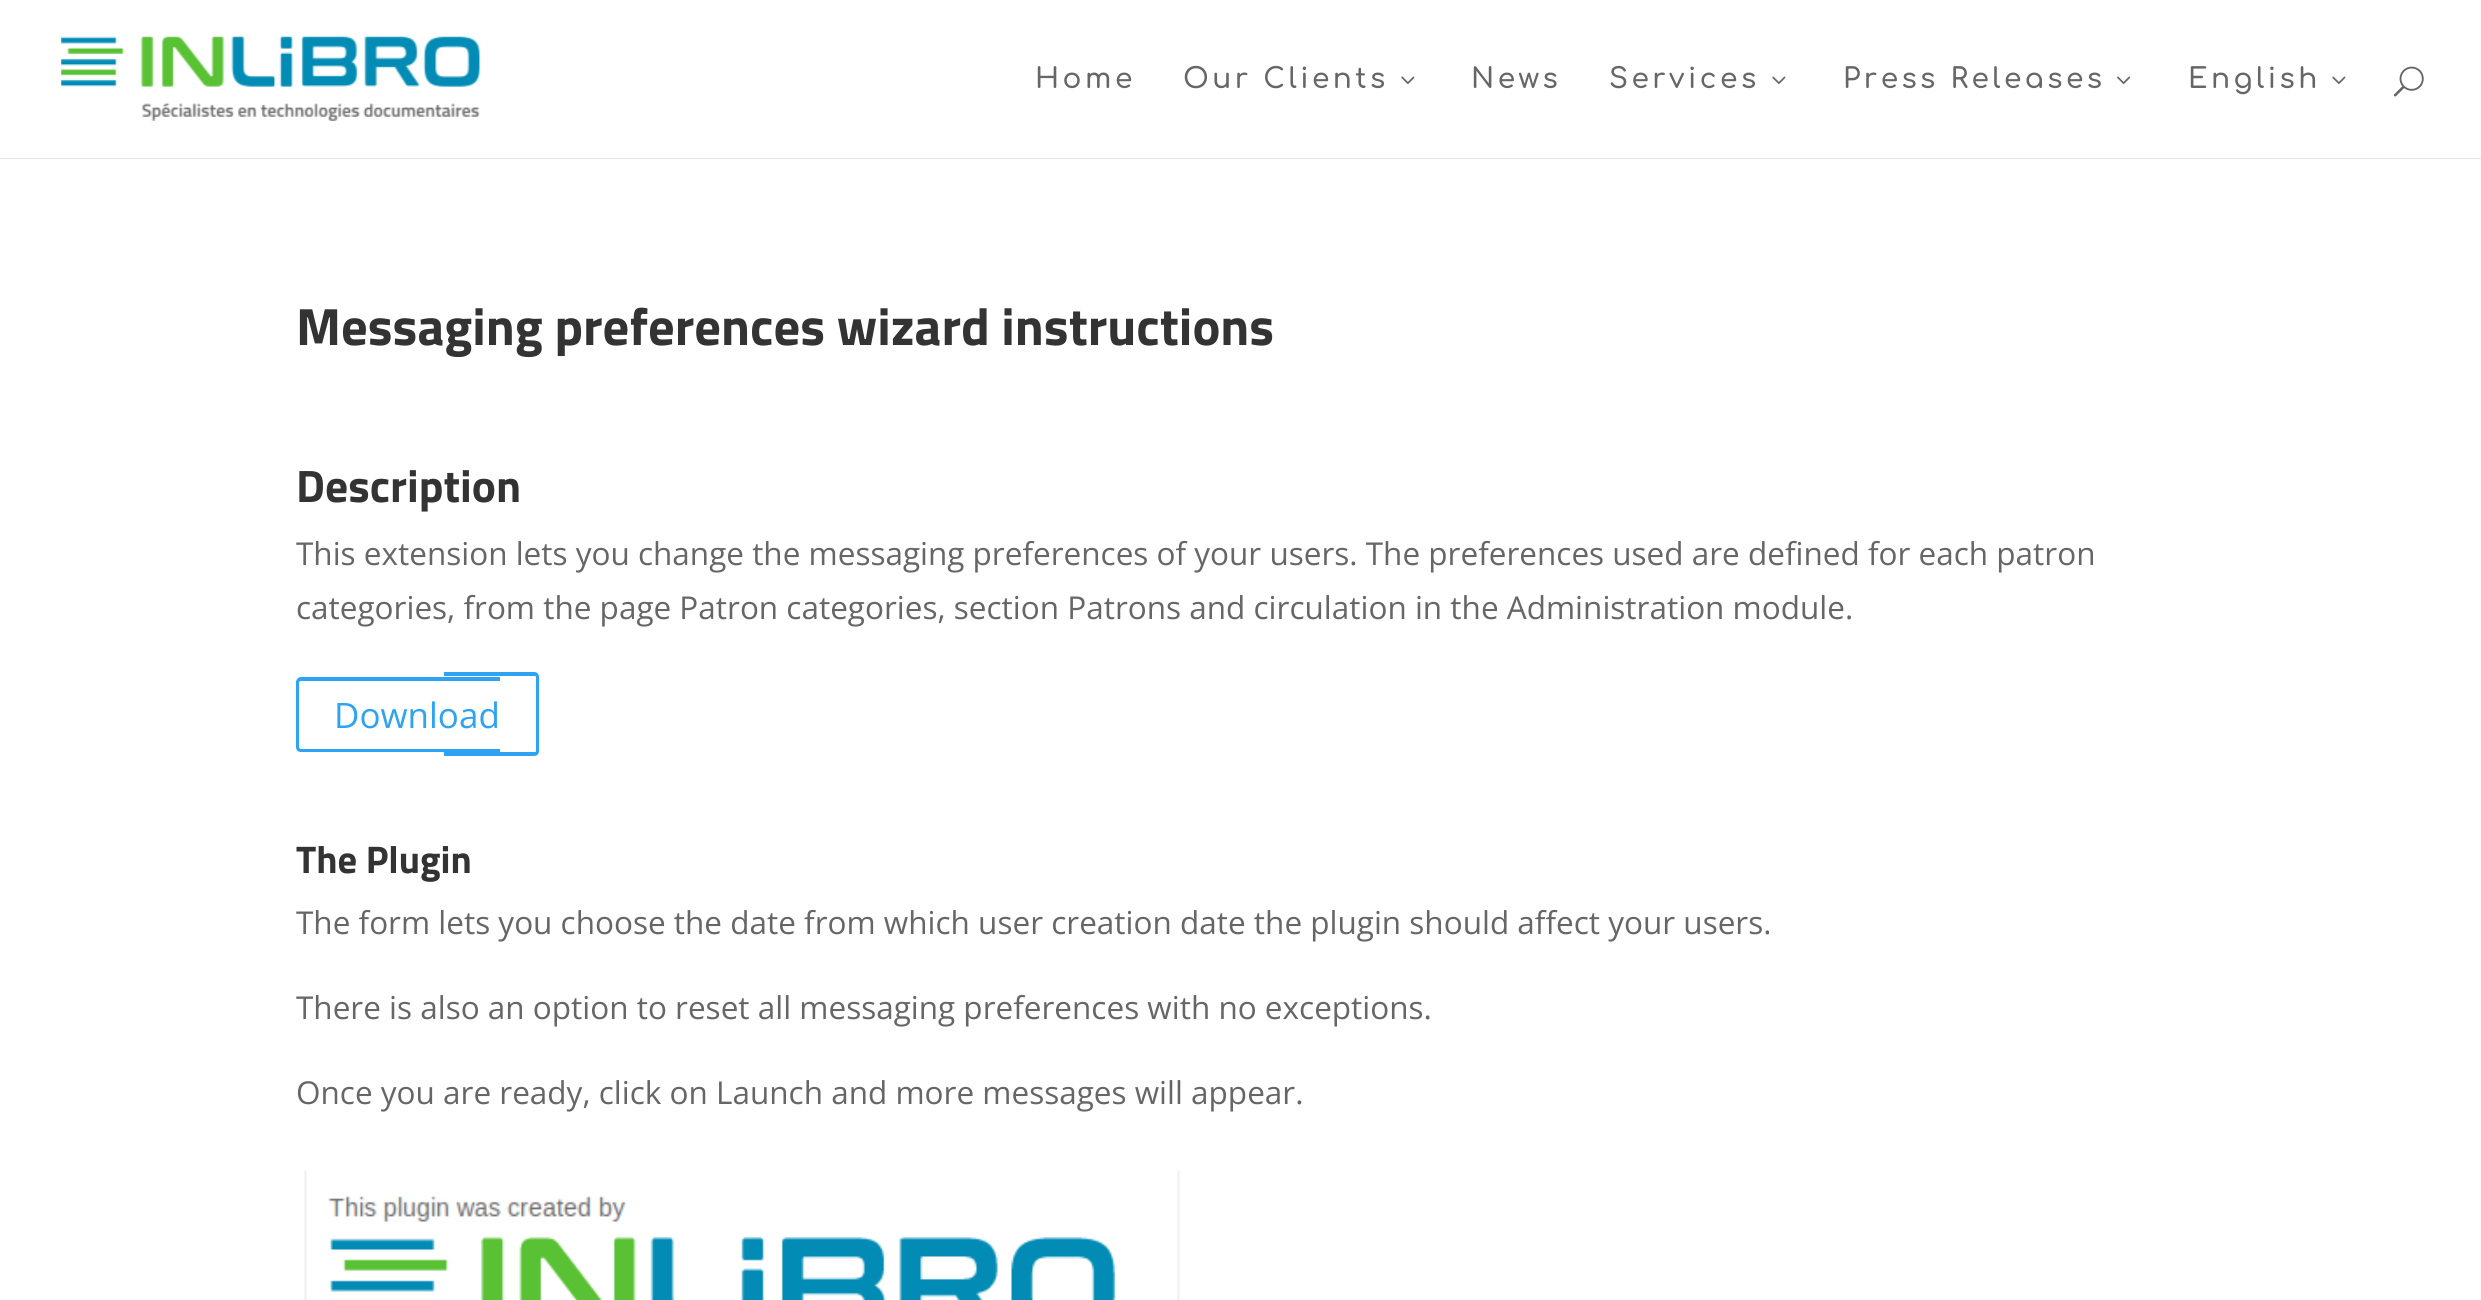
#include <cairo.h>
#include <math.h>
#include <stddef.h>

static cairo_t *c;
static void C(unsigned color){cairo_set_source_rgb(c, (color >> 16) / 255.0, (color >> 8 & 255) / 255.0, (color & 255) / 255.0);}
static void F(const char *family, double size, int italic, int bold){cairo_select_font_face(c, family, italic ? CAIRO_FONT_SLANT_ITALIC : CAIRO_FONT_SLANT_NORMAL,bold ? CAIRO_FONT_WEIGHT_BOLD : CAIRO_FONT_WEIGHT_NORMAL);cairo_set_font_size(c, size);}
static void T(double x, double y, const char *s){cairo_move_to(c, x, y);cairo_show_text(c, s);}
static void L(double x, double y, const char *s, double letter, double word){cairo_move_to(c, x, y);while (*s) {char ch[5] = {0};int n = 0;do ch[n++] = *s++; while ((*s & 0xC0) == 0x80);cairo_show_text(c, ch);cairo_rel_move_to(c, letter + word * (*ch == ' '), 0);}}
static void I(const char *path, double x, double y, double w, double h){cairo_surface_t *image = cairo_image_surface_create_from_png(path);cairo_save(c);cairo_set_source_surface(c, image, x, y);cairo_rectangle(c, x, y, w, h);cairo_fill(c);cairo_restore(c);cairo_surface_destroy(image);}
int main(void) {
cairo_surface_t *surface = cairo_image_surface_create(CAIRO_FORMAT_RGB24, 2481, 1300);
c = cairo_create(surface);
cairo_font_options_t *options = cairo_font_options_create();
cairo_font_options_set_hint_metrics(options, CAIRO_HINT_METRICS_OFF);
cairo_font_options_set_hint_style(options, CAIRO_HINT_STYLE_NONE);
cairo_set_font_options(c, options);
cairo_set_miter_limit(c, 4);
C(0xffffff);
cairo_paint(c);
C(0xe6e6e6);
cairo_new_path(c);
cairo_move_to(c,0,158);
cairo_line_to(c,0,159);
cairo_line_to(c,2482,159);
cairo_line_to(c,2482,2);
cairo_line_to(c,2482,158);
cairo_close_path(c);
cairo_fill(c);
I("1.png",61,36,420,85);
F("Comfortaa SemiBold",28,0,0);
C(0x666666);
L(1035,88,"Home",3.5,0);
L(1183,88,"Our Clients",3.5,0);
I("2.png",1401,76,14,8);
L(1471,88,"News",3.5,0);
L(1609,88,"Services",3.5,0);
I("2.png",1772,76,14,8);
L(1843,88,"Press Releases",3.5,0);
I("3.png",2117,76,14,8);
L(2188,88,"English",3.5,0);
I("2.png",2332,76,14,8);
I("4.png",2393,66,31,31);
F("Titillium Web",52.5,0,1);
C(0x333333);
T(296,345,"Messaging preferences wizard instructions");
F("Titillium Web",45.5,0,1);
T(296,502,"Description");
F("Open Sans",31.5,0,0);
C(0x666666);
T(296,565,"This extension lets you change the messaging preferences of your users. The preferences used are defined for each patron");
T(296,619,"categories, from the page Patron categories, section Patrons and circulation in the Administration module.");
C(0x2ea3f2);
cairo_set_fill_rule(c,CAIRO_FILL_RULE_EVEN_ODD);
cairo_new_path(c);
cairo_move_to(c,301,677);
cairo_line_to(c,500,677);
cairo_line_to(c,500,752);
cairo_line_to(c,301,752);
cairo_curve_to(c,298,752,296,750,296,747);
cairo_line_to(c,296,682);
cairo_curve_to(c,296,680,298,677,301,677);
cairo_close_path(c);
cairo_move_to(c,301,681);
cairo_line_to(c,500,681);
cairo_line_to(c,500,749);
cairo_line_to(c,301,749);
cairo_curve_to(c,300,749,299,748,299,747);
cairo_line_to(c,299,682);
cairo_curve_to(c,299,682,300,681,301,681);
cairo_close_path(c);
cairo_fill(c);
cairo_new_path(c);
cairo_move_to(c,444,672);
cairo_line_to(c,534,672);
cairo_curve_to(c,537,672,539,674,539,677);
cairo_line_to(c,539,751);
cairo_curve_to(c,539,754,537,756,534,756);
cairo_line_to(c,444,756);
cairo_close_path(c);
cairo_move_to(c,444,676);
cairo_line_to(c,534,676);
cairo_curve_to(c,535,676,536,676,536,677);
cairo_line_to(c,536,751);
cairo_curve_to(c,536,752,535,752,534,752);
cairo_line_to(c,444,752);
cairo_close_path(c);
cairo_fill(c);
F("Open Sans",35,0,0);
T(334,728,"Download");
F("Titillium Web",38.5,0,1);
C(0x333333);
T(296,873,"The Plugin");
F("Open Sans",31.5,0,0);
C(0x666666);
T(296,934,"The form lets you choose the date from which user creation date the plugin should affect your users.");
T(296,1019,"There is also an option to reset all messaging preferences with no exceptions.");
T(296,1104,"Once you are ready, click on Launch and more messages will appear.");
I("5.png",304,1170,876,130);
cairo_surface_write_to_png(surface, "o.png");
cairo_font_options_destroy(options);
cairo_destroy(c);
cairo_surface_destroy(surface);
return 0;
}
